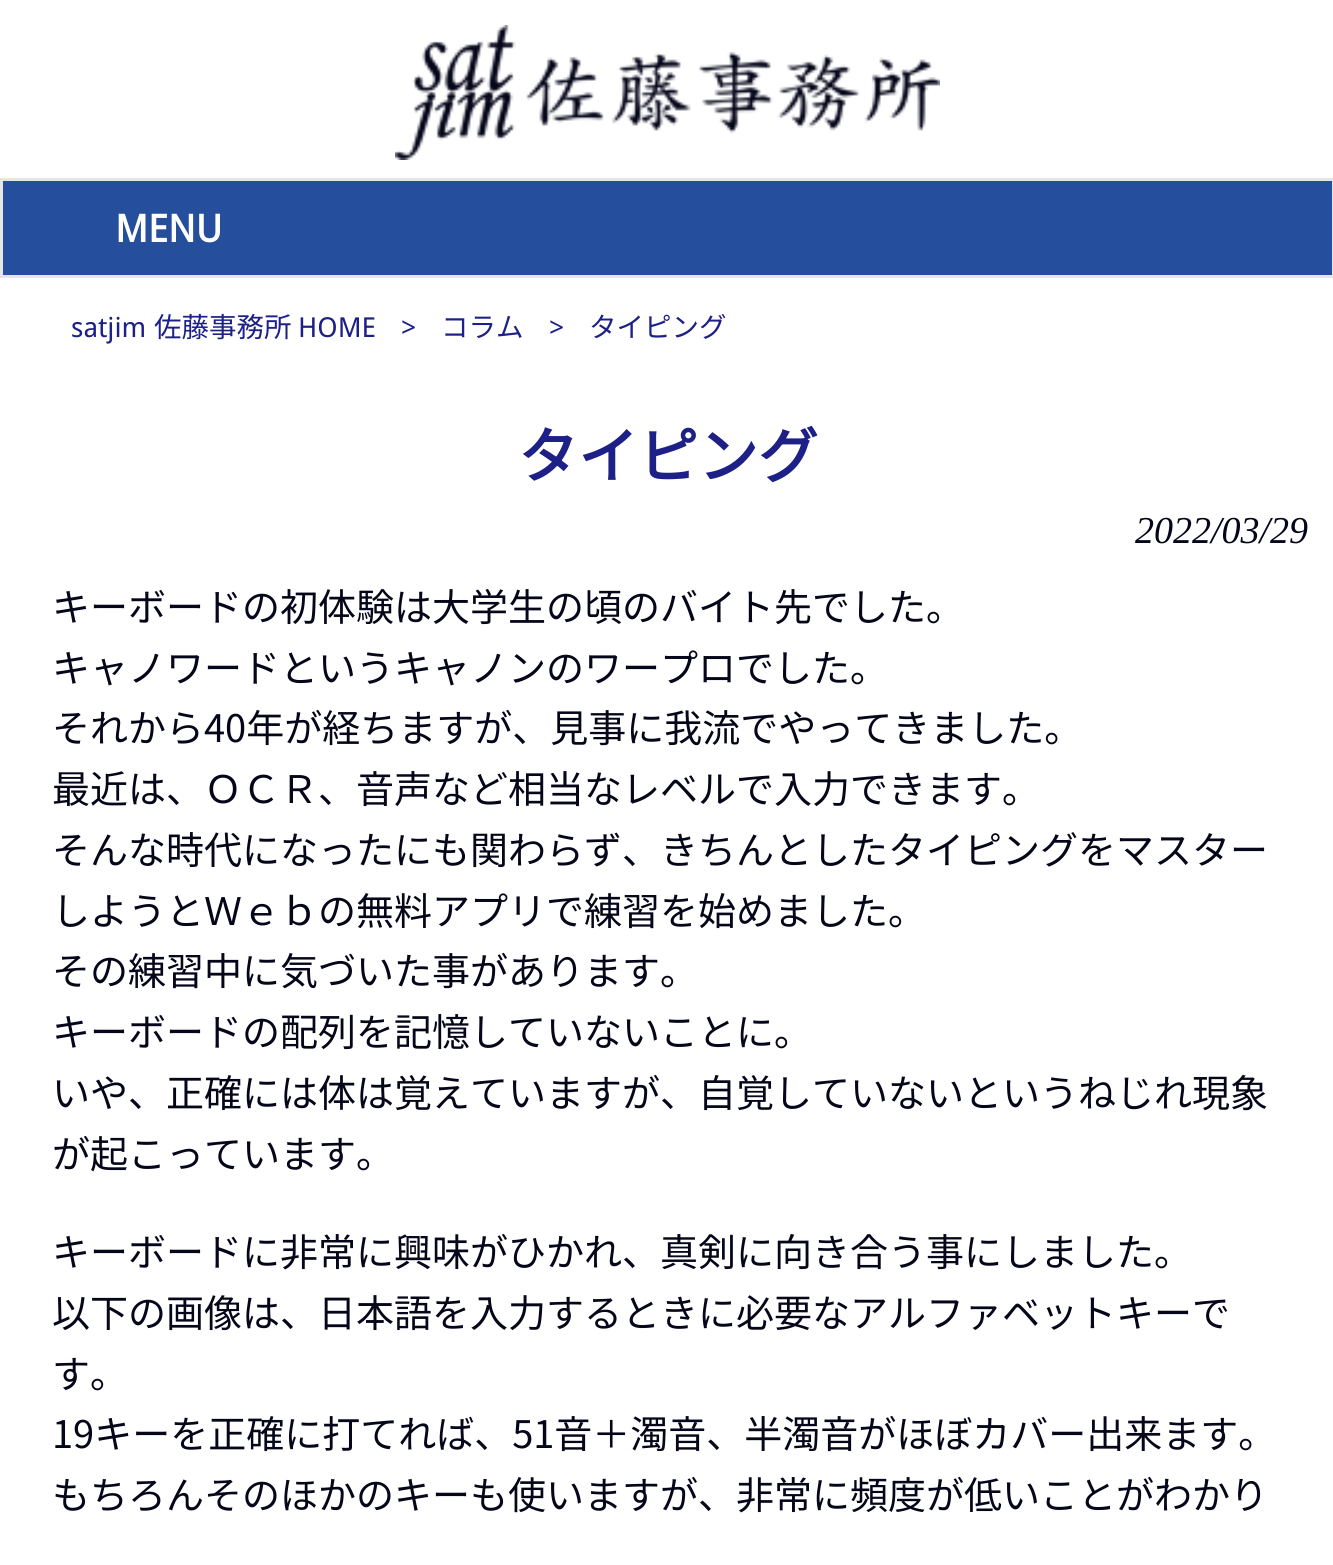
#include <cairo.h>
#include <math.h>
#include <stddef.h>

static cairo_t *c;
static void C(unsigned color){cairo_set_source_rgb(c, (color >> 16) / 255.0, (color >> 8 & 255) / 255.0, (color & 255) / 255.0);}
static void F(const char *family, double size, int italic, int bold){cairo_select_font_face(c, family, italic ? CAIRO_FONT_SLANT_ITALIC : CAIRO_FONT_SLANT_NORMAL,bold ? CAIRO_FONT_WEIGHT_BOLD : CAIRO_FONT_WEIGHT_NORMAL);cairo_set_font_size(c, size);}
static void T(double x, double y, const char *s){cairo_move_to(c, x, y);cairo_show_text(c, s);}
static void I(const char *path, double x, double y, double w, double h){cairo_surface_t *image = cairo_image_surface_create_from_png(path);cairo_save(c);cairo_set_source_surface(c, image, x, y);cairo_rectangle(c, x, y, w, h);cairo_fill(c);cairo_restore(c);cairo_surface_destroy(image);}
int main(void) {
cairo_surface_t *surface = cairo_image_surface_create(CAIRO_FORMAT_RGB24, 1333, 1565);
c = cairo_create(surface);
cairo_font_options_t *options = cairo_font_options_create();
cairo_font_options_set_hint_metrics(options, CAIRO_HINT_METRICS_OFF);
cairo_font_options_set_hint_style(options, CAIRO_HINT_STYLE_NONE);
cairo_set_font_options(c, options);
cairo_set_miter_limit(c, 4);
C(0xffffff);
cairo_paint(c);
I("1.png",395,25,545,135);
C(0x254e9d);
cairo_rectangle(c,1.5,179.5,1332,97);
cairo_fill_preserve(c);
C(0xe6e6e6);
cairo_set_line_width(c,3);
cairo_stroke(c);
F("Droid Sans",38,0,1);
C(0xffffff);
T(115,242,"MENU");
F("Droid Sans",27.5,0,0);
C(0x1d2086);
T(71,337,"satjim");
F("Noto Sans JP Thin",27.5,0,0);
T(154,337,"佐藤事務所");
F("Droid Sans",27.5,0,0);
T(298,337,"HOME");
T(401,337,">");
F("Noto Sans JP Thin",27.5,0,0);
T(441,337,"コラム");
F("Droid Sans",27.5,0,0);
T(549,337,">");
F("Noto Sans JP Thin",27.5,0,0);
T(589,337,"タイピング");
F("Noto Sans JP",60,0,1);
T(518,478,"タイピング");
F("Liberation Serif",38,1,0);
C(0x06061a);
T(1135,543,"2022/03/29");
F("Noto Sans JP Thin",38,0,0);
T(52,621,"キーボードの初体験は大学生の頃のバイト先でした。");
T(52,682,"キャノワードというキャノンのワープロでした。");
T(52,742,"それから40年が経ちますが、見事に我流でやってきました。");
T(52,803,"最近は、ＯＣＲ、音声など相当なレベルで入力できます。");
T(52,864,"そんな時代になったにも関わらず、きちんとしたタイピングをマスター");
T(52,925,"しようとＷｅｂの無料アプリで練習を始めました。");
T(52,985,"その練習中に気づいた事があります。");
T(52,1046,"キーボードの配列を記憶していないことに。");
T(52,1107,"いや、正確には体は覚えていますが、自覚していないというねじれ現象");
T(52,1168,"が起こっています。");
T(52,1266,"キーボードに非常に興味がひかれ、真剣に向き合う事にしました。");
T(52,1327,"以下の画像は、日本語を入力するときに必要なアルファベットキーで");
T(52,1388,"す。");
T(52,1448,"19キーを正確に打てれば、51音＋濁音、半濁音がほぼカバー出来ます。");
T(52,1509,"もちろんそのほかのキーも使いますが、非常に頻度が低いことがわかり");
cairo_surface_write_to_png(surface, "o.png");
cairo_font_options_destroy(options);
cairo_destroy(c);
cairo_surface_destroy(surface);
return 0;
}
